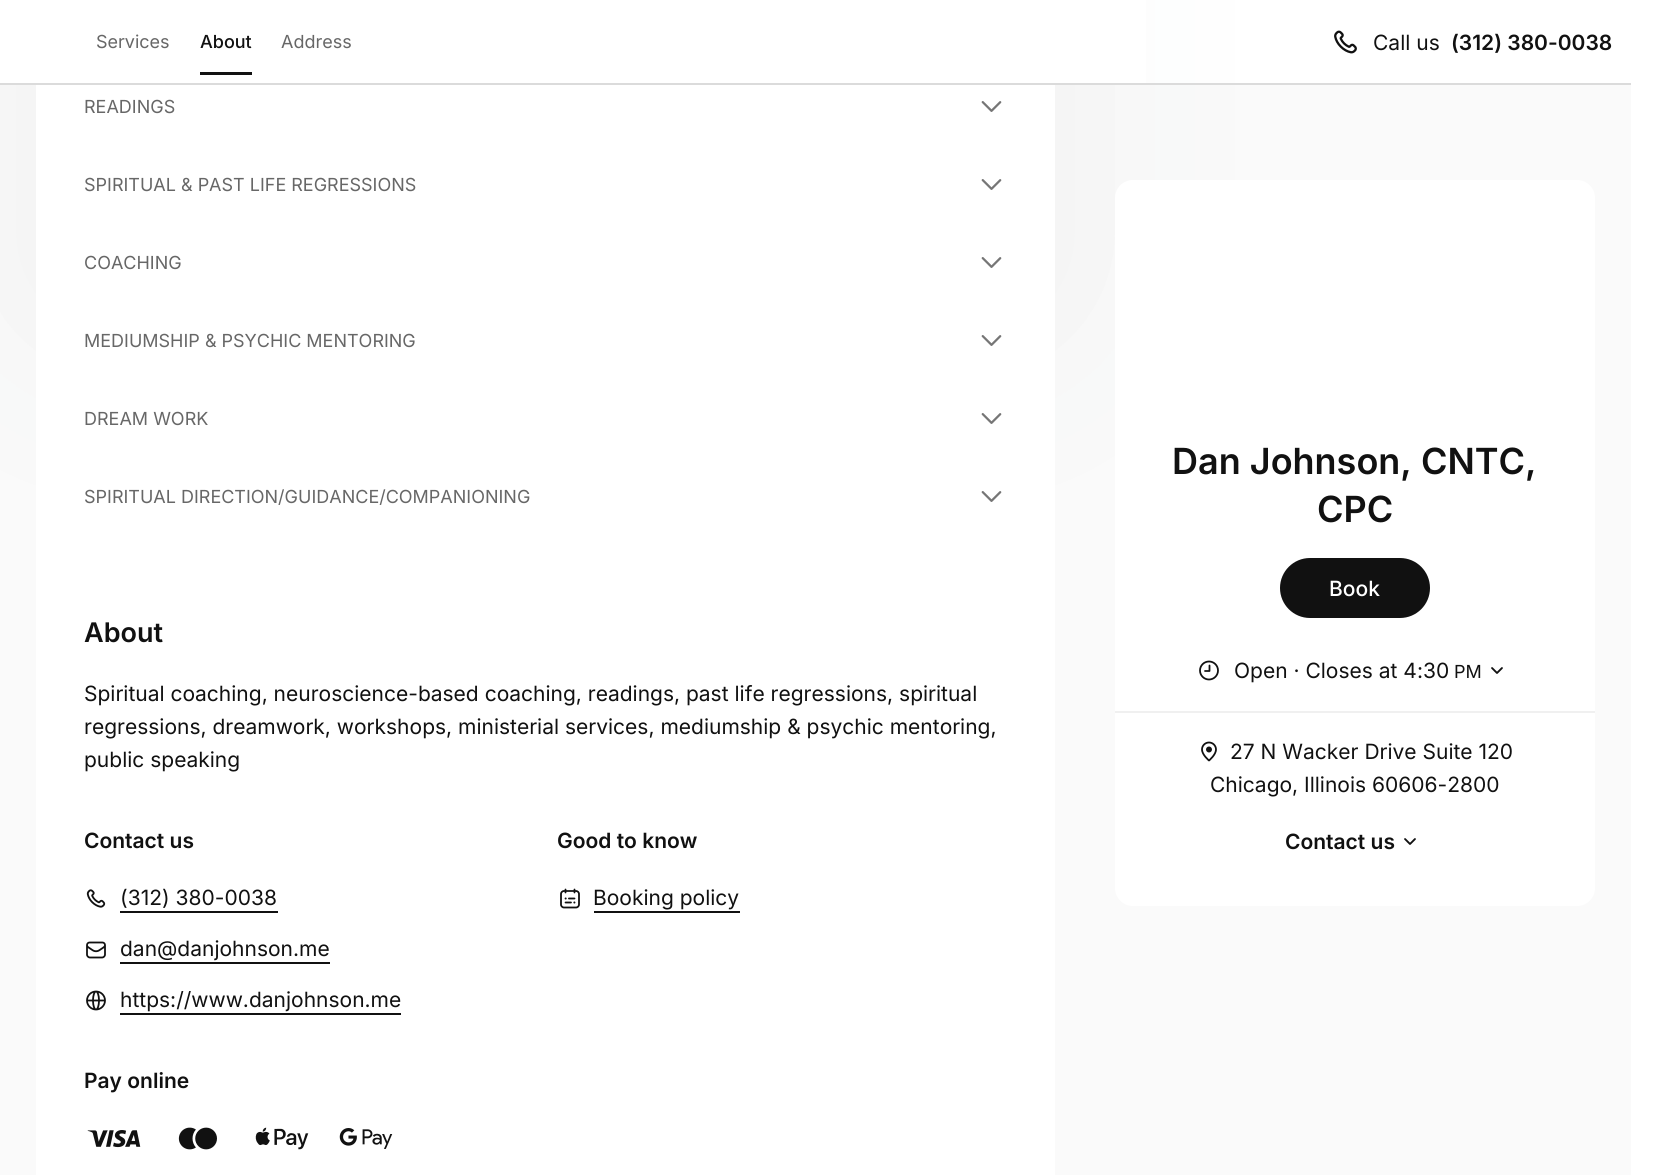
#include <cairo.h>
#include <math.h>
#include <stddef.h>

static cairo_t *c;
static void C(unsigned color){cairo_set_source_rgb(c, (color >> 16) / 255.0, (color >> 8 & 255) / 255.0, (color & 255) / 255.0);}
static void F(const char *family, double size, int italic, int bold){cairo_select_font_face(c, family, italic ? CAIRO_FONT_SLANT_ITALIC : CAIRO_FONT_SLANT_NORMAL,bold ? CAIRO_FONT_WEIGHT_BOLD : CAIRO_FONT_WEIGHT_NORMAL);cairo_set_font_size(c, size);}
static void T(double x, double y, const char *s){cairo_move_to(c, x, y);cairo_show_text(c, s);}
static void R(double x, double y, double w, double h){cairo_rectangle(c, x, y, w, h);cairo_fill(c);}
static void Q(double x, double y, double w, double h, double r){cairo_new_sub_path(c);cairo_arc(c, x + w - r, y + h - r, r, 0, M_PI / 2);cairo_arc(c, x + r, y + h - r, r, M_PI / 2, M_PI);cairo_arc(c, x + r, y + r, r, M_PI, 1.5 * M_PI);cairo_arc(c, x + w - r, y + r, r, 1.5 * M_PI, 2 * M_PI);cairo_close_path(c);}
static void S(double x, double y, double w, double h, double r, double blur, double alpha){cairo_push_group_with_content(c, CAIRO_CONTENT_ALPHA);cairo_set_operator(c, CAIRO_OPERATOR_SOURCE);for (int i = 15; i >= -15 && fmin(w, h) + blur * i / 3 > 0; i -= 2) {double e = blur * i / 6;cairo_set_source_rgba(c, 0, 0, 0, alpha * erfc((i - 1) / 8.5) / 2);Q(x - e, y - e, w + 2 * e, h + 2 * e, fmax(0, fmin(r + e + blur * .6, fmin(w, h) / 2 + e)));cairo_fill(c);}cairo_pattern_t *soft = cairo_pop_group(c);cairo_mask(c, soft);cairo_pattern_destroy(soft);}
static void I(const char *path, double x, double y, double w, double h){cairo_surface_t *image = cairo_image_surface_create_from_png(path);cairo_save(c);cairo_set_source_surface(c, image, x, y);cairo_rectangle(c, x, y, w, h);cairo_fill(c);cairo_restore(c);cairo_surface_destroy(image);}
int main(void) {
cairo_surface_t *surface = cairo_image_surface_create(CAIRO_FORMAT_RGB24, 1653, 1175);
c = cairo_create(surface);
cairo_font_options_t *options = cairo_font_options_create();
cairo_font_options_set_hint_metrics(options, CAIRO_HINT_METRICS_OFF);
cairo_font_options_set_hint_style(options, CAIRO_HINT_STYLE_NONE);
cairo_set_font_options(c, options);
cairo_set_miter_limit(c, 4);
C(0xffffff);
cairo_paint(c);
C(0xfafafa);
R(0,85,1631,1090);
C(0x3f4447);
S(36,-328,1019,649,18,120,.06);
C(0xffffff);
R(0,0,1146,83);
C(0xdbdbdb);
R(0,83,1631,2);
F("Inter",18,0,0);
C(0x676767);
T(96,48,"Services");
F("Inter Medium",18,0,0);
C(0x111111);
T(200,48,"About");
R(200,72,52,3);
F("Inter",18,0,0);
C(0x676767);
T(281,48,"Address");
I("1.png",1334,30,23,24);
F("Inter",21,0,0);
C(0x111111);
T(1373,50,"Call us");
F("Inter SemiBold",21,0,0);
T(1451,50,"(312) 380-0038");
C(0xffffff);
R(36,85,1019,1090);
F("Inter",18,0,0);
C(0x676767);
T(84,113,"READINGS");
I("2.png",981,101,21,11);
T(84,191,"SPIRITUAL & PAST LIFE REGRESSIONS");
I("2.png",981,179,21,11);
T(84,269,"COACHING");
I("2.png",981,257,21,11);
T(84,347,"MEDIUMSHIP & PSYCHIC MENTORING");
I("2.png",981,335,21,11);
T(84,425,"DREAM WORK");
I("2.png",981,413,21,11);
T(84,503,"SPIRITUAL DIRECTION/GUIDANCE/COMPANIONING");
I("2.png",981,491,21,11);
F("Inter SemiBold",27,0,0);
C(0x111111);
T(84,642,"About");
F("Inter",21,0,0);
T(84,701,"Spiritual coaching, neuroscience-based coaching, readings, past life regressions, spiritual");
T(84,734,"regressions, dreamwork, workshops, ministerial services, mediumship & psychic mentoring,");
T(84,767,"public speaking");
F("Inter SemiBold",21,0,0);
T(84,848,"Contact us");
I("3.png",86,889,20,19);
F("Inter",21,0,0);
T(120,905,"(312) 380-0038");
R(120,911,158,2);
I("4.png",86,941,20,18);
T(120,956,"dan@danjohnson.me");
R(120,962,210,2);
I("5.png",86,990,20,21);
T(120,1007,"https://www.danjohnson.me");
R(120,1013,281,2);
F("Inter SemiBold",21,0,0);
T(557,848,"Good to know");
I("6.png",560,888,20,21);
F("Inter",21,0,0);
T(593,905,"Booking policy");
R(594,911,146,2);
F("Inter SemiBold",21,0,0);
T(84,1088,"Pay online");
I("7.png",87,1130,54,18);
I("8.png",178,1127,39,23);
I("9.png",255,1127,54,23);
I("10.png",339,1128,54,21);
C(0xffffff);
Q(1115,180,480,726,18);
cairo_fill(c);
F("Inter SemiBold",36,0,0);
C(0x111111);
T(1172,474,"Dan Johnson, CNTC,");
T(1317,522,"CPC");
Q(1280,558,150,60,30);
cairo_fill(c);
F("Inter Medium",21,0,0);
C(0xffffff);
T(1329,596,"Book");
I("11.png",1199,660,20,21);
F("Inter",21,0,0);
C(0x111111);
T(1234,678,"Open · Closes at 4:30");
F("Inter",18,0,0);
T(1454,678,"PM");
I("12.png",1491,667,12,7);
C(0xf0f0f0);
R(1115,711,480,2);
I("13.png",1201,741,16,21);
F("Inter",21,0,0);
C(0x111111);
T(1230,759,"27 N Wacker Drive Suite 120");
T(1210,792,"Chicago, Illinois 60606-2800");
F("Inter SemiBold",21,0,0);
T(1285,849,"Contact us");
I("12.png",1404,838,12,7);
cairo_surface_write_to_png(surface, "o.png");
cairo_font_options_destroy(options);
cairo_destroy(c);
cairo_surface_destroy(surface);
return 0;
}
